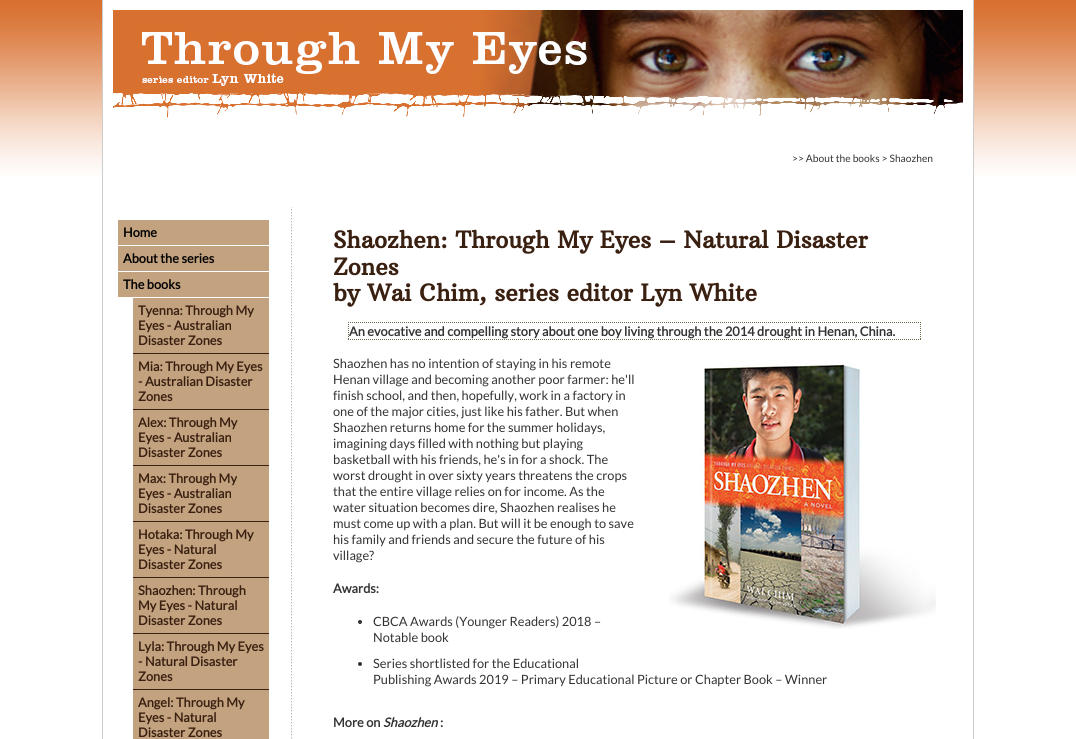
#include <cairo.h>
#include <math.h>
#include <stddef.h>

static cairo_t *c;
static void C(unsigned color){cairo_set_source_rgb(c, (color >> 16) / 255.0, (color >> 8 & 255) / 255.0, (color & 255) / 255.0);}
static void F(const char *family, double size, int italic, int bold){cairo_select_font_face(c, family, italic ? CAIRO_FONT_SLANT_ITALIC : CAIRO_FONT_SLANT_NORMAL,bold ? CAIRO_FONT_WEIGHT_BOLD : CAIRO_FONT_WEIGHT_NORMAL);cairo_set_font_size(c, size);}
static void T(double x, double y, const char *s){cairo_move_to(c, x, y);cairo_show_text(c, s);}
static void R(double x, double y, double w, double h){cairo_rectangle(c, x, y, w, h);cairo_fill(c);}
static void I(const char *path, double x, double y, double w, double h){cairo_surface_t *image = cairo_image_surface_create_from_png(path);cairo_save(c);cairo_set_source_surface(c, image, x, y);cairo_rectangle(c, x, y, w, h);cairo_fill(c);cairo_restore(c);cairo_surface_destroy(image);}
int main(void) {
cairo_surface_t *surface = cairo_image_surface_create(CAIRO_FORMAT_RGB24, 1076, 739);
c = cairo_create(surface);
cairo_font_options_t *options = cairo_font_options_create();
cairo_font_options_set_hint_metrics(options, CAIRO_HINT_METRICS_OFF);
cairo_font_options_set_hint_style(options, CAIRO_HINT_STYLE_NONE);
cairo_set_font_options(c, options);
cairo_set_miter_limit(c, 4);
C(0xffffff);
cairo_paint(c);
I("1.png",0,0,1076,176);
C(0xffffff);
R(103,0,870,176);
C(0xcccccc);
R(973,0,1,739);
R(102,0,1,739);
I("2.png",113,10,850,117);
F("Lato",10.25,0,0);
C(0x333333);
T(792,162,">> About the books > Shaozhen");
I("3.png",291,207,1,532);
C(0xc3a27f);
R(118,220,151,25);
F("Lato",12.8,0,1);
C(0x000000);
T(123,237,"Home");
C(0xc3a27f);
R(118,246,151,25);
C(0x000000);
T(123,263,"About the series");
C(0xc3a27f);
R(118,272,151,25);
C(0x000000);
T(123,289,"The books");
C(0x3a2011);
R(133,353,136,1);
C(0xc3a27f);
R(133,298,136,55);
C(0x3a2011);
T(138,315,"Tyenna: Through My");
T(138,330,"Eyes - Australian");
T(138,345,"Disaster Zones");
R(133,409,136,1);
C(0xc3a27f);
R(133,354,136,55);
C(0x3a2011);
T(138,371,"Mia: Through My Eyes");
T(138,386,"- Australian Disaster");
T(138,401,"Zones");
R(133,465,136,1);
C(0xc3a27f);
R(133,410,136,55);
C(0x3a2011);
T(138,427,"Alex: Through My");
T(138,442,"Eyes - Australian");
T(138,457,"Disaster Zones");
R(133,521,136,1);
C(0xc3a27f);
R(133,466,136,55);
C(0x3a2011);
T(138,483,"Max: Through My");
T(138,498,"Eyes - Australian");
T(138,513,"Disaster Zones");
R(133,577,136,1);
C(0xc3a27f);
R(133,522,136,55);
C(0x3a2011);
T(138,539,"Hotaka: Through My");
T(138,554,"Eyes - Natural");
T(138,569,"Disaster Zones");
R(133,633,136,1);
C(0xc3a27f);
R(133,578,136,55);
C(0x3a2011);
T(138,595,"Shaozhen: Through");
T(138,610,"My Eyes - Natural");
T(138,625,"Disaster Zones");
R(133,689,136,1);
C(0xc3a27f);
R(133,634,136,55);
C(0x3a2011);
T(138,651,"Lyla: Through My Eyes");
T(138,666,"- Natural Disaster");
T(138,681,"Zones");
C(0xc3a27f);
R(133,690,136,49);
C(0x3a2011);
T(138,707,"Angel: Through My");
T(138,722,"Eyes - Natural");
T(138,737,"Disaster Zones");
F("Arbutus Slab",23,0,1);
T(333,248,"Shaozhen: Through My Eyes – Natural Disaster");
T(333,275,"Zones");
T(333,301,"by Wai Chim, series editor Lyn White");
cairo_new_path(c);
cairo_move_to(c,348,322.5);
cairo_line_to(c,921,322.5);
C(0x69694e);
cairo_set_line_width(c,1);
cairo_set_dash(c,(double[]){1,1},2,0);
cairo_stroke(c);
cairo_new_path(c);
cairo_move_to(c,920.5,322);
cairo_line_to(c,920.5,340);
cairo_stroke(c);
cairo_new_path(c);
cairo_move_to(c,348,339.5);
cairo_line_to(c,921,339.5);
cairo_stroke(c);
cairo_new_path(c);
cairo_move_to(c,348.5,322);
cairo_line_to(c,348.5,340);
cairo_stroke(c);
F("Lato",12.8,0,1);
C(0x333333);
T(349,336,"An evocative and compelling story about one boy living through the 2014 drought in Henan, China.");
F("Lato",12.8,0,0);
T(333,368,"Shaozhen has no intention of staying in his remote");
T(333,384,"Henan village and becoming another poor farmer: he'll");
T(333,400,"finish school, and then, hopefully, work in a factory in");
T(333,416,"one of the major cities, just like his father. But when");
T(333,432,"Shaozhen returns home for the summer holidays,");
T(333,448,"imagining days filled with nothing but playing");
T(333,464,"basketball with his friends, he's in for a shock. The");
T(333,480,"worst drought in over sixty years threatens the crops");
T(333,496,"that the entire village relies on for income. As the");
T(333,512,"water situation becomes dire, Shaozhen realises he");
T(333,528,"must come up with a plan. But will it be enough to save");
T(333,544,"his family and friends and secure the future of his");
T(333,560,"village?");
I("4.png",669,363,267,266);
F("Lato",12.8,0,1);
T(333,593,"Awards:");
cairo_new_path(c);
cairo_arc(c,360,622,2,0,2 * M_PI);
cairo_fill(c);
F("Lato",12.8,0,0);
T(373,626,"CBCA Awards (Younger Readers) 2018 –");
T(373,642,"Notable book");
cairo_new_path(c);
cairo_arc(c,360,664,2,0,2 * M_PI);
cairo_fill(c);
T(373,668,"Series shortlisted for the Educational");
T(373,684,"Publishing Awards 2019 – Primary Educational Picture or Chapter Book – Winner");
F("Lato",12.8,0,1);
T(333,727,"More on");
F("Lato",12.8,1,1);
T(383,727,"Shaozhen");
F("Lato",12.8,0,1);
T(440,727,":");
cairo_surface_write_to_png(surface, "o.png");
cairo_font_options_destroy(options);
cairo_destroy(c);
cairo_surface_destroy(surface);
return 0;
}
